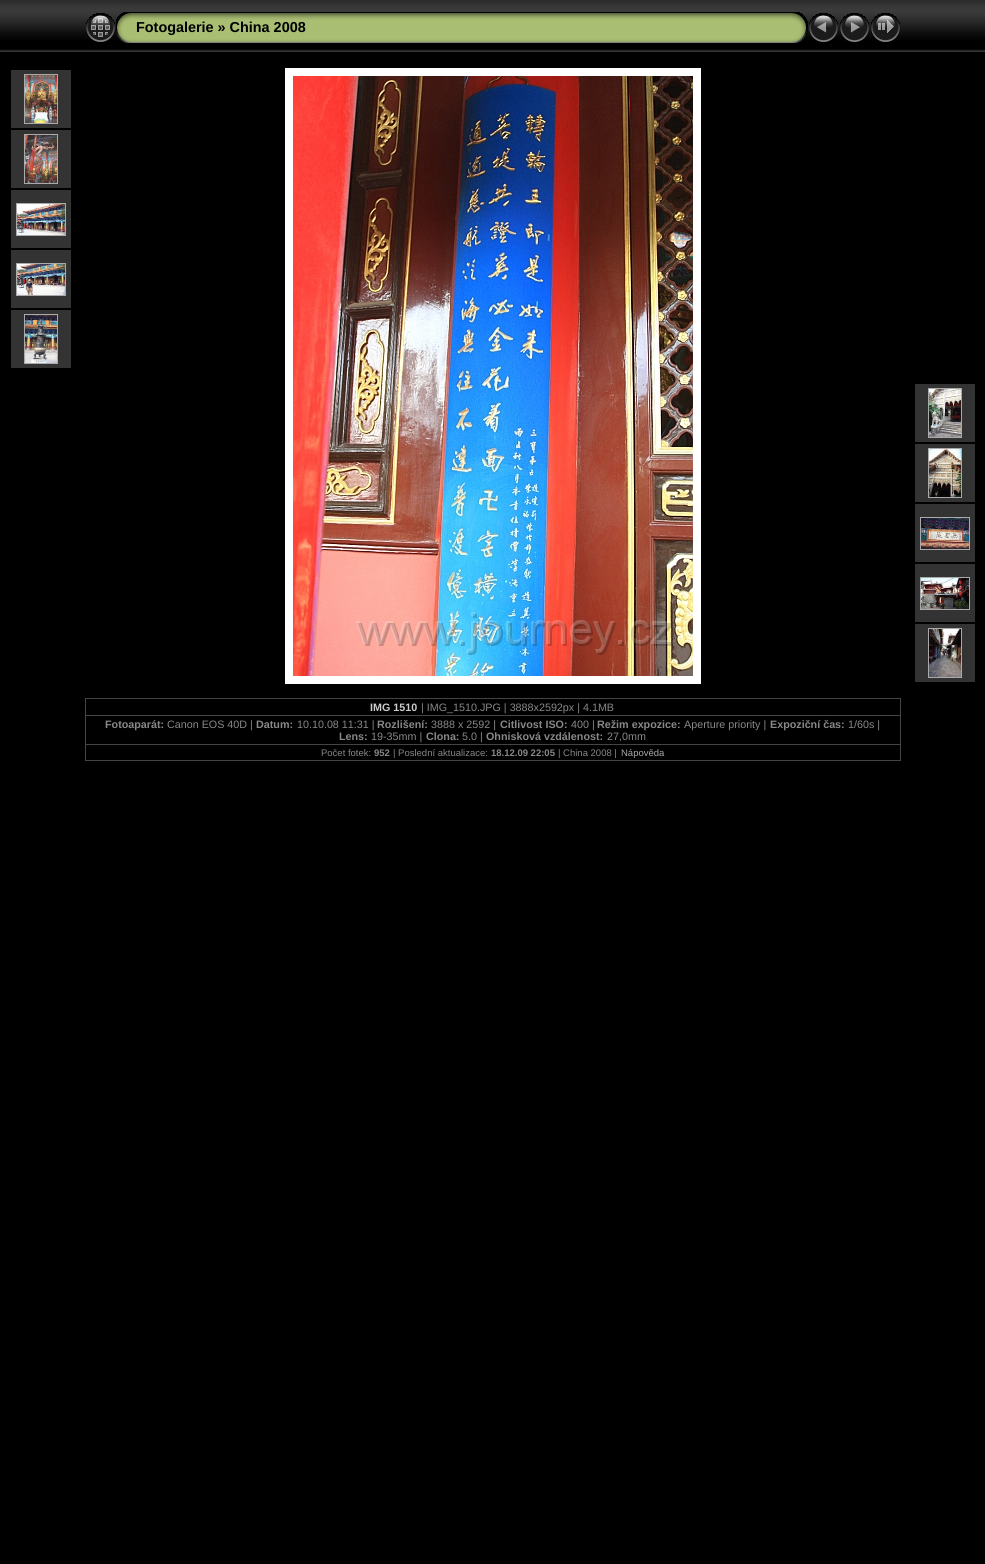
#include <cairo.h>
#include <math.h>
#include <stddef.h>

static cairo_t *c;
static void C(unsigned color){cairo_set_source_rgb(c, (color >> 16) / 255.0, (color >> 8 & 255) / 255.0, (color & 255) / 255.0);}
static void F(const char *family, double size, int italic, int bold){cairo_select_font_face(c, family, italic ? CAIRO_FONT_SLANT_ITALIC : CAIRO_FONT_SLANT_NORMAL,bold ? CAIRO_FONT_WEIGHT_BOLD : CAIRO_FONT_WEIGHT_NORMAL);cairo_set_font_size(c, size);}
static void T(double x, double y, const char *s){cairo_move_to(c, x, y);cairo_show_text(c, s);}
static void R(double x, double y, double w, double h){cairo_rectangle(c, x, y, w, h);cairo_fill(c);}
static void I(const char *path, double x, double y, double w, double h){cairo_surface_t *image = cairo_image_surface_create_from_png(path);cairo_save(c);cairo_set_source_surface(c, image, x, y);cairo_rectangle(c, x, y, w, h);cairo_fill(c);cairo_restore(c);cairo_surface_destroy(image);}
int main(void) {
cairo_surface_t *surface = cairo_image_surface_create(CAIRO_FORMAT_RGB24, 985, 1564);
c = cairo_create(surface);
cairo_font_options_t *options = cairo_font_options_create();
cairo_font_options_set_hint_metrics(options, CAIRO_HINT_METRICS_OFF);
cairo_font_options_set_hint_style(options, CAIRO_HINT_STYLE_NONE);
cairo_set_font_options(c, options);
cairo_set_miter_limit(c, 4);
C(0x000000);
cairo_paint(c);
I("1.png",0,0,985,52);
I("2.png",86,13,29,29);
I("3.png",116,12,20,31);
I("4.png",136,12,652,31);
F("Liberation Sans",14.4,0,1);
C(0x000000);
T(136,32,"Fotogalerie » China 2008");
I("5.png",788,12,20,31);
I("6.png",809,13,29,29);
I("7.png",840,13,29,29);
I("8.png",871,13,29,29);
C(0x333333);
R(11,70,60,58);
cairo_rectangle(c,24.5,74.5,33,49);
C(0xaaaaaa);
cairo_set_line_width(c,1);
cairo_stroke(c);
I("9.png",25,75,32,48);
C(0x333333);
R(11,130,60,58);
cairo_rectangle(c,24.5,134.5,33,49);
C(0xaaaaaa);
cairo_stroke(c);
I("10.png",25,135,32,48);
C(0x333333);
R(11,190,60,58);
cairo_rectangle(c,16.5,203.5,49,32);
C(0xaaaaaa);
cairo_stroke(c);
I("11.png",17,204,48,31);
C(0x333333);
R(11,250,60,58);
cairo_rectangle(c,16.5,263.5,49,32);
C(0xaaaaaa);
cairo_stroke(c);
I("12.png",17,264,48,31);
C(0x333333);
R(11,310,60,58);
cairo_rectangle(c,24.5,314.5,33,49);
C(0xaaaaaa);
cairo_stroke(c);
I("13.png",25,315,32,48);
cairo_rectangle(c,289,72,408,608);
C(0xffffff);
cairo_set_line_width(c,8);
cairo_stroke(c);
I("14.png",293,76,400,600);
C(0x333333);
R(915,384,60,58);
cairo_rectangle(c,928.5,388.5,33,49);
C(0xaaaaaa);
cairo_set_line_width(c,1);
cairo_stroke(c);
I("15.png",929,389,32,48);
C(0x333333);
R(915,444,60,58);
cairo_rectangle(c,928.5,448.5,33,49);
C(0xaaaaaa);
cairo_stroke(c);
I("16.png",929,449,32,48);
C(0x333333);
R(915,504,60,58);
cairo_rectangle(c,920.5,517.5,49,32);
C(0xaaaaaa);
cairo_stroke(c);
I("17.png",921,518,48,31);
C(0x333333);
R(915,564,60,58);
cairo_rectangle(c,920.5,577.5,49,32);
C(0xaaaaaa);
cairo_stroke(c);
I("18.png",921,578,48,31);
C(0x333333);
R(915,624,60,58);
cairo_rectangle(c,928.5,628.5,33,49);
C(0xaaaaaa);
cairo_stroke(c);
I("19.png",929,629,32,48);
C(0x444444);
R(85,698,816,1);
R(900,698,1,63);
R(85,760,816,1);
R(85,698,1,63);
F("Liberation Sans",10.75,0,1);
C(0xcccccc);
T(370,711,"IMG 1510");
F("Liberation Sans",10.75,0,0);
C(0x888888);
T(421,711,"| IMG_1510.JPG | 3888x2592px | 4.1MB");
C(0x444444);
R(85,715,816,1);
F("Liberation Sans",10.75,0,1);
C(0x888888);
T(105,728,"Fotoaparát:");
F("Liberation Sans",10.75,0,0);
T(167,728,"Canon EOS 40D |");
F("Liberation Sans",10.75,0,1);
T(256,728,"Datum:");
F("Liberation Sans",10.75,0,0);
T(297,728,"10.10.08 11:31 |");
F("Liberation Sans",10.75,0,1);
T(377,728,"Rozlišení:");
F("Liberation Sans",10.75,0,0);
T(431,728,"3888 x 2592 |");
F("Liberation Sans",10.75,0,1);
T(500,728,"Citlivost ISO:");
F("Liberation Sans",10.75,0,0);
T(571,728,"400 |");
F("Liberation Sans",10.75,0,1);
T(597,728,"Režim expozice:");
F("Liberation Sans",10.75,0,0);
T(684,728,"Aperture priority |");
F("Liberation Sans",10.75,0,1);
T(770,728,"Expoziční čas:");
F("Liberation Sans",10.75,0,0);
T(848,728,"1/60s |");
F("Liberation Sans",10.75,0,1);
T(339,740,"Lens:");
F("Liberation Sans",10.75,0,0);
T(371,740,"19-35mm |");
F("Liberation Sans",10.75,0,1);
T(426,740,"Clona:");
F("Liberation Sans",10.75,0,0);
T(462,740,"5.0 |");
F("Liberation Sans",10.75,0,1);
T(486,740,"Ohnisková vzdálenost:");
F("Liberation Sans",10.75,0,0);
T(607,740,"27,0mm");
C(0x444444);
R(85,744,816,1);
F("Liberation Sans",9.5,0,0);
C(0x888888);
T(321,756,"Počet fotek:");
F("Liberation Sans",9.5,0,1);
T(374,756,"952");
F("Liberation Sans",9.5,0,0);
T(393,756,"| Poslední aktualizace:");
F("Liberation Sans",9.5,0,1);
T(491,756,"18.12.09 22:05");
F("Liberation Sans",9.5,0,0);
T(558,756,"| China 2008 |");
C(0xaaaaaa);
T(621,756,"Nápověda");
cairo_surface_write_to_png(surface, "o.png");
cairo_font_options_destroy(options);
cairo_destroy(c);
cairo_surface_destroy(surface);
return 0;
}
